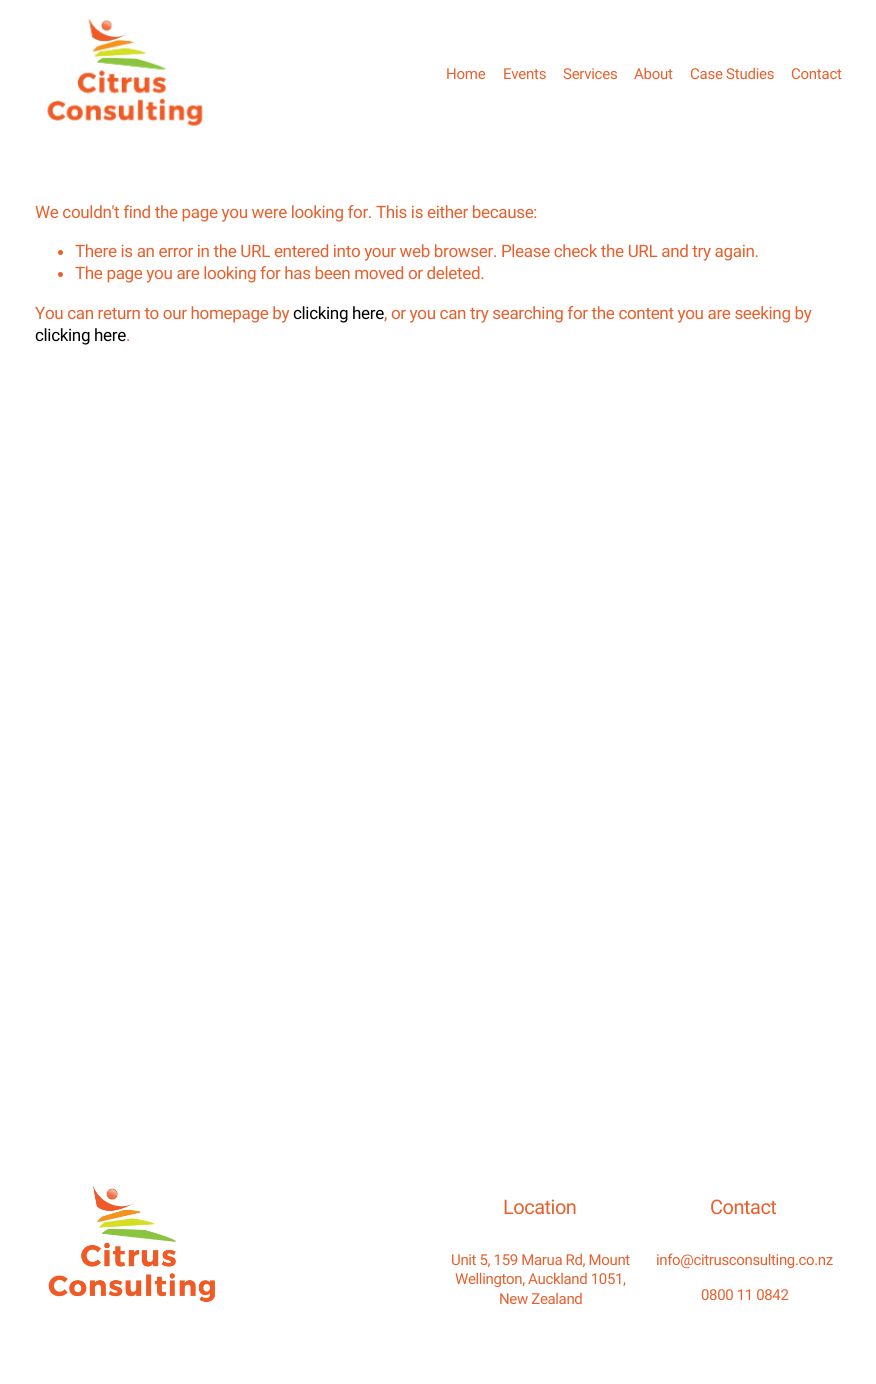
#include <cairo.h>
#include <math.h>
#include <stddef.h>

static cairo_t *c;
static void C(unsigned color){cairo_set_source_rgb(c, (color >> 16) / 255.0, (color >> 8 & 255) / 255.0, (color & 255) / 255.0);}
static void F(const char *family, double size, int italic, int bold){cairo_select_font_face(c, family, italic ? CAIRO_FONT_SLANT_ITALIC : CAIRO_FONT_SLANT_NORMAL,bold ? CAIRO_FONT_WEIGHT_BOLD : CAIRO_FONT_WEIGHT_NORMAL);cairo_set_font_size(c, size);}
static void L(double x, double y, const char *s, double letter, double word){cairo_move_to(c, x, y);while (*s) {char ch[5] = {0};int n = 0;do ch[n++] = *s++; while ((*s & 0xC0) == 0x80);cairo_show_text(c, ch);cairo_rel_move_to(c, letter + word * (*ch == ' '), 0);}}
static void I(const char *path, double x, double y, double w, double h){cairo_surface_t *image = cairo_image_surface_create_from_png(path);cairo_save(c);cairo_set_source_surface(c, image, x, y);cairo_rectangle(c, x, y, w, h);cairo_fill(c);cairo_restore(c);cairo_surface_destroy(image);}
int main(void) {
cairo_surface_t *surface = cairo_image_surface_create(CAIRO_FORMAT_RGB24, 876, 1384);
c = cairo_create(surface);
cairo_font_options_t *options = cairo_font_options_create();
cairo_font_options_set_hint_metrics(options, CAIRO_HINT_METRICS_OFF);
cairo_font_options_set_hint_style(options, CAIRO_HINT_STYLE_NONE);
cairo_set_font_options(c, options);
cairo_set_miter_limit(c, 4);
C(0xffffff);
cairo_paint(c);
I("1.png",47,18,156,109);
F("Roboto",15,0,0);
C(0xe8602d);
L(446,79,"Home",-.25,0);
L(503,79,"Events",-.25,0);
L(563,79,"Services",-.25,0);
L(634,79,"About",-.25,0);
L(690,79,"Case Studies",-.25,0);
L(791,79,"Contact",-.25,0);
F("Roboto",17.05,0,0);
L(35,218,"We couldn't find the page you were looking for. This is either because:",-.35,0);
cairo_new_path(c);
cairo_arc(c,60.5,252.5,2.5,0,2 * M_PI);
cairo_fill(c);
L(75,257,"There is an error in the URL entered into your web browser. Please check the URL and try again.",-.35,0);
cairo_new_path(c);
cairo_arc(c,60.5,274.5,2.5,0,2 * M_PI);
cairo_fill(c);
L(75,279,"The page you are looking for has been moved or deleted.",-.35,0);
L(35,319,"You can return to our homepage by",-.35,0);
C(0x000000);
L(293,319,"clicking here",-.35,0);
C(0xe8602d);
L(384,319,", or you can try searching for the content you are seeking by",-.35,0);
C(0x000000);
L(35,341,"clicking here",-.35,0);
C(0xe8602d);
L(126,341,".",-.35,0);
I("2.png",48,1186,167,116);
F("Roboto",20,0,0);
L(503,1214,"Location",-.5,0);
F("Roboto",15,0,0);
L(451,1265,"Unit 5, 159 Marua Rd, Mount",-.35,0);
L(455,1284,"Wellington, Auckland 1051,",-.35,0);
L(499,1304,"New Zealand",-.35,0);
F("Roboto",20,0,0);
L(710,1214,"Contact",-.5,0);
F("Roboto",15,0,0);
L(656,1265,"info@citrusconsulting.co.nz",-.35,0);
L(701,1300,"0800 11 0842",-.35,0);
cairo_surface_write_to_png(surface, "o.png");
cairo_font_options_destroy(options);
cairo_destroy(c);
cairo_surface_destroy(surface);
return 0;
}
